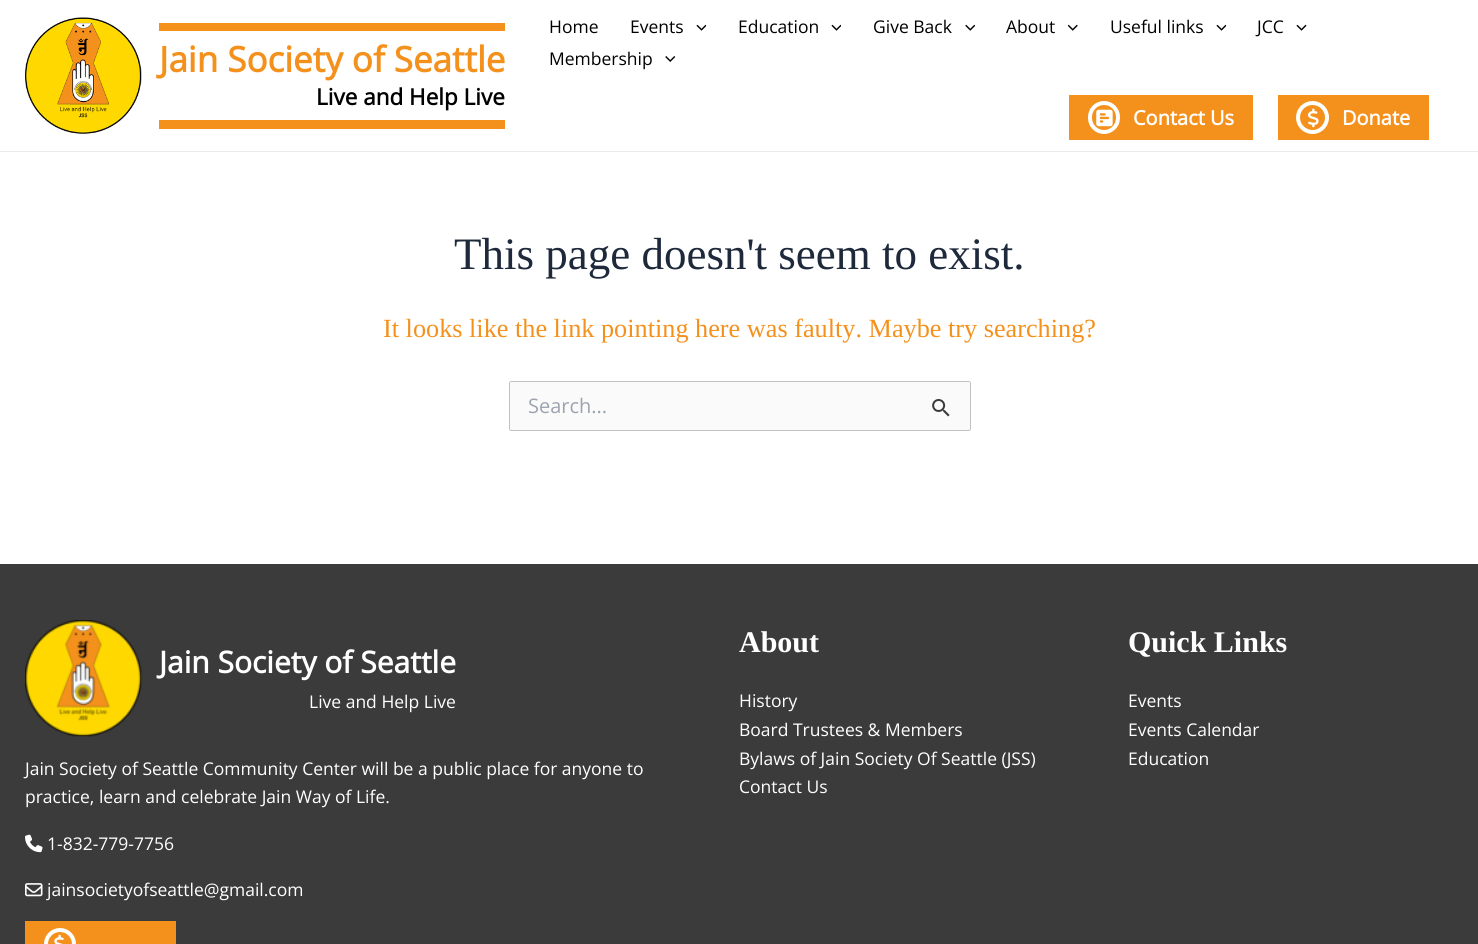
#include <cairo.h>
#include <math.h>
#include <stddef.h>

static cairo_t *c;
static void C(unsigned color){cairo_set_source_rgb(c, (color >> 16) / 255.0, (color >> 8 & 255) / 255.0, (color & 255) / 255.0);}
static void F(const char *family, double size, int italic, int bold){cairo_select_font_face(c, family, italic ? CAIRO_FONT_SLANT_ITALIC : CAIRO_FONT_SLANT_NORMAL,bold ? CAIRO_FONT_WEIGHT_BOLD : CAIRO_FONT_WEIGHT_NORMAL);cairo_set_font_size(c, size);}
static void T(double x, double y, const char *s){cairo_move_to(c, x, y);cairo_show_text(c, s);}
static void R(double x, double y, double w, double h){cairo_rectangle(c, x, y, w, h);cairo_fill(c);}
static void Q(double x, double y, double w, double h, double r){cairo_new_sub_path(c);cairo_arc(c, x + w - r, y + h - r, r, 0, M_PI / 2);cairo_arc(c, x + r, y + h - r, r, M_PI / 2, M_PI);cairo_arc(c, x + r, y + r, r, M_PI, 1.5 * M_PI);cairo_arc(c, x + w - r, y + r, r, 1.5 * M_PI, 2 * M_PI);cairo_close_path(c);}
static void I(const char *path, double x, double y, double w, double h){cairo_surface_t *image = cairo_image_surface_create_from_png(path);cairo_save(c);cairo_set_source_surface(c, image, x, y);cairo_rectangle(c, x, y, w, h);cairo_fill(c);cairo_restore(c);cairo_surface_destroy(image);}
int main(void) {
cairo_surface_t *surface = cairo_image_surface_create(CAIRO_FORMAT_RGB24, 1478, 944);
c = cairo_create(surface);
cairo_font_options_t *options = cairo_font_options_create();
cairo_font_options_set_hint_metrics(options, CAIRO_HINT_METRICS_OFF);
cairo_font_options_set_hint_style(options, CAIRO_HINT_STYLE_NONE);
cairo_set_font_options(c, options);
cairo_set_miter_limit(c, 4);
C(0xffffff);
cairo_paint(c);
C(0xeaeaea);
R(0,151,1478,1);
I("1.png",25,17,117,117);
C(0xf4911d);
R(159,23,346,8);
R(159,120,346,9);
F("Open Sans",35,0,1);
T(159,72,"Jain Society of Seattle");
F("Open Sans",22.5,0,1);
C(0x000000);
T(316,105,"Live and Help Live");
F("Open Sans",17.5,0,0);
T(549,33,"Home");
T(630,33,"Events");
I("2.png",696,24,10,7);
T(738,33,"Education");
I("2.png",831,24,10,7);
T(873,33,"Give Back");
I("3.png",965,24,10,7);
T(1006,33,"About");
I("4.png",1068,24,10,7);
T(1110,33,"Useful links");
I("2.png",1216,24,10,7);
T(1257,33,"JCC");
I("5.png",1296,24,11,7);
T(549,65,"Membership");
I("6.png",665,56,11,6);
C(0xf4911d);
R(1069,95,184,45);
Q(1090,103,28,29,14);
C(0xffffff);
cairo_set_line_width(c,4);
cairo_stroke(c);
I("7.png",1096,109,17,18);
F("Open Sans",20,0,1);
T(1133,125,"Contact Us");
C(0xf4911d);
R(1278,95,151,45);
cairo_new_path(c);
cairo_arc(c,1312.5,117.5,14.5,0,2 * M_PI);
C(0xffffff);
cairo_stroke(c);
I("8.png",1308,108,11,20);
T(1342,125,"Donate");
F("Liberation Serif",45,0,0);
C(0x1e293b);
T(454,269,"This page doesn't seem to exist.");
F("Liberation Serif",26.25,0,0);
C(0xf4911d);
T(383,337,"It looks like the link pointing here was faulty. Maybe try searching?");
C(0xfafafa);
Q(509.5,381.5,461,49,2);
cairo_fill_preserve(c);
C(0xc1c1c1);
cairo_set_line_width(c,1);
cairo_stroke(c);
F("Open Sans",20,0,0);
C(0x9ca3af);
T(528,413,"Search...");
I("9.png",932,399,18,18);
C(0x3b3b3b);
R(0,564,1478,380);
I("10.png",25,620,117,117);
F("Open Sans",30,0,1);
C(0xffffff);
T(159,673,"Jain Society of Seattle");
F("Open Sans",17.5,0,0);
T(309,708,"Live and Help Live");
T(25,775,"Jain Society of Seattle Community Center will be a public place for anyone to");
T(25,803,"practice, learn and celebrate Jain Way of Life.");
I("11.png",25,834,18,19);
T(47,850,"1-832-779-7756");
I("12.png",25,883,18,14);
T(47,896,"jainsocietyofseattle@gmail.com");
C(0xf4911d);
R(25,921,151,23);
cairo_new_path(c);
cairo_arc(c,60,944,14,0,2 * M_PI);
C(0xffffff);
cairo_set_line_width(c,4);
cairo_stroke(c);
I("13.png",54,934,10,10);
F("Liberation Serif",30,0,1);
T(739,652,"About");
F("Open Sans",17.5,0,0);
T(739,707,"History");
T(739,736,"Board Trustees & Members");
T(739,765,"Bylaws of Jain Society Of Seattle (JSS)");
T(739,793,"Contact Us");
F("Liberation Serif",30,0,1);
T(1128,652,"Quick Links");
F("Open Sans",17.5,0,0);
T(1128,707,"Events");
T(1128,736,"Events Calendar");
T(1128,765,"Education");
cairo_surface_write_to_png(surface, "o.png");
cairo_font_options_destroy(options);
cairo_destroy(c);
cairo_surface_destroy(surface);
return 0;
}
